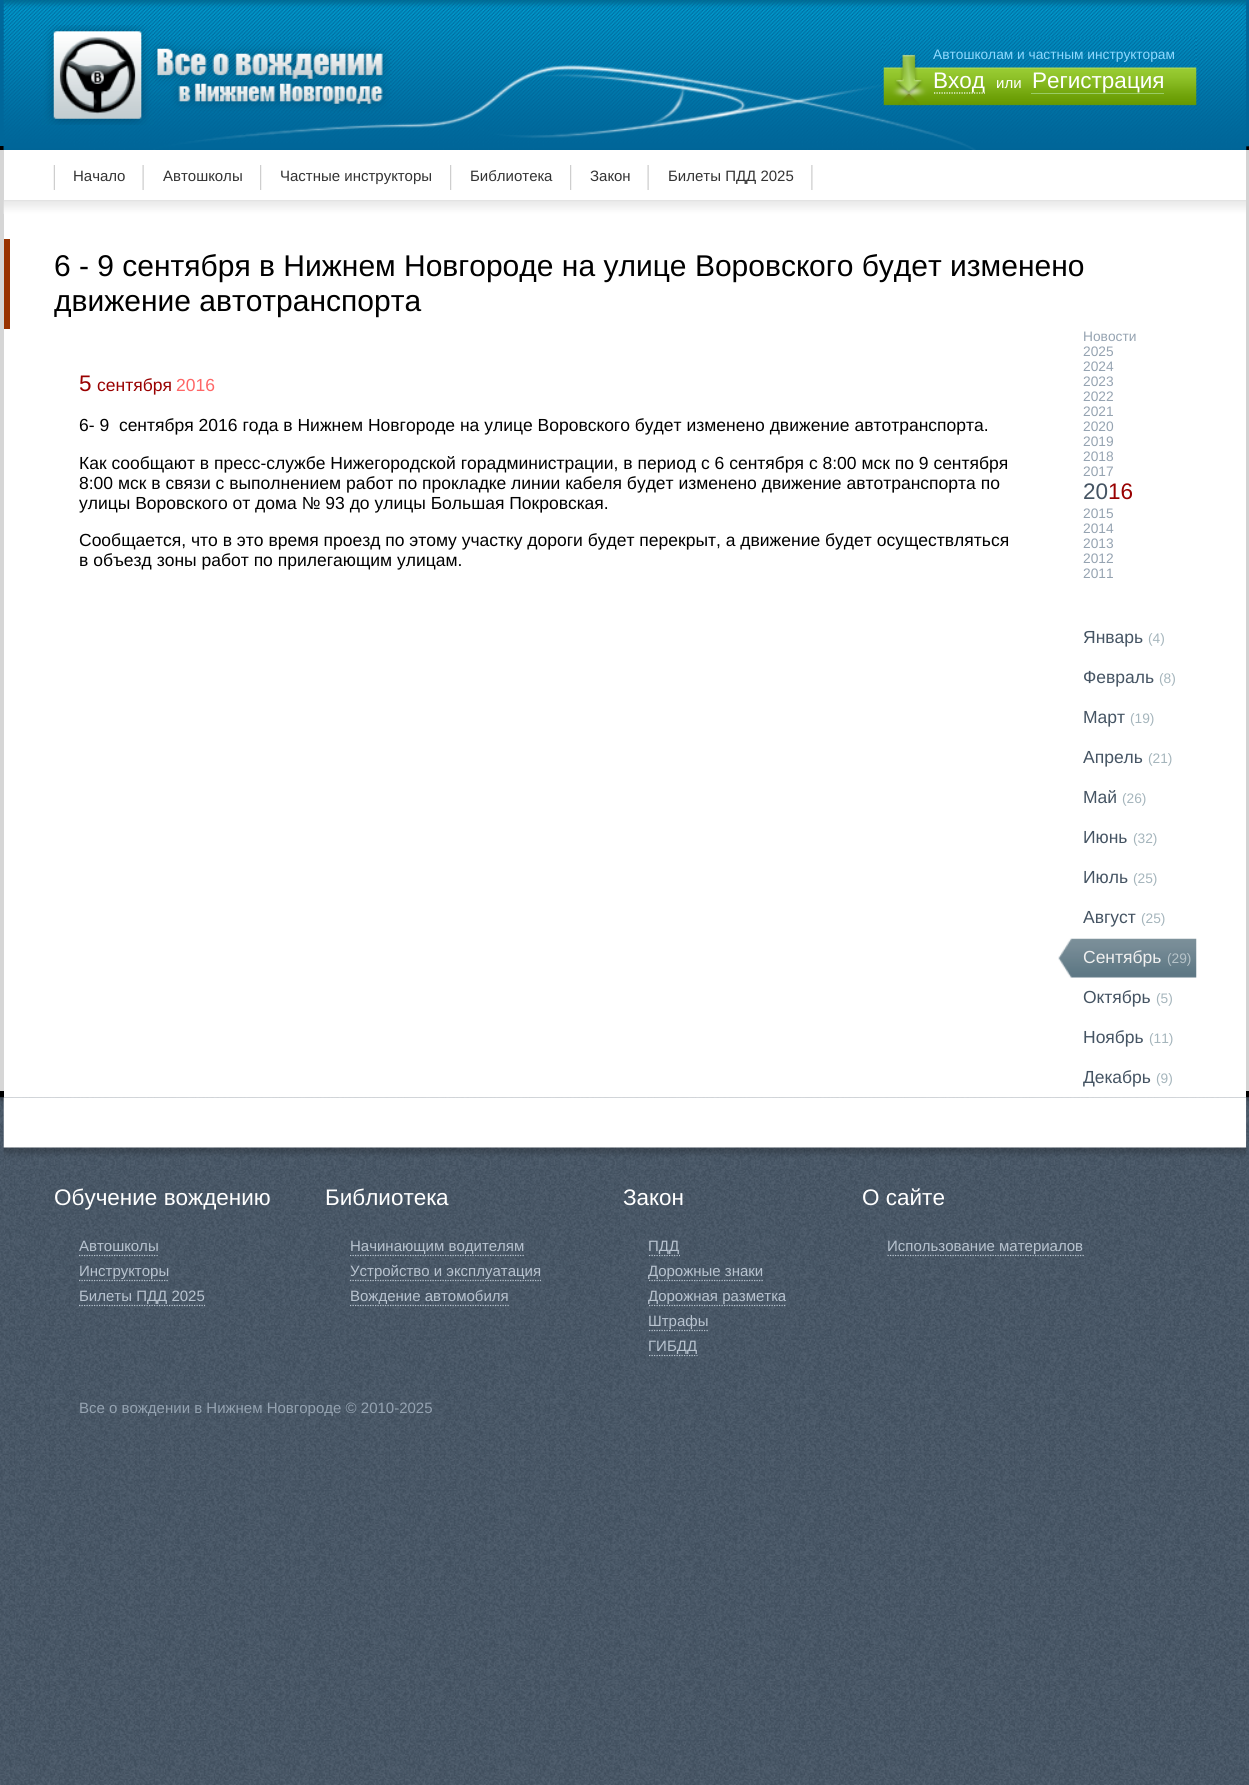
#include <cairo.h>
#include <math.h>
#include <stddef.h>

static cairo_t *c;
static void C(unsigned color){cairo_set_source_rgb(c, (color >> 16) / 255.0, (color >> 8 & 255) / 255.0, (color & 255) / 255.0);}
static void F(const char *family, double size, int italic, int bold){cairo_select_font_face(c, family, italic ? CAIRO_FONT_SLANT_ITALIC : CAIRO_FONT_SLANT_NORMAL,bold ? CAIRO_FONT_WEIGHT_BOLD : CAIRO_FONT_WEIGHT_NORMAL);cairo_set_font_size(c, size);}
static void T(double x, double y, const char *s){cairo_move_to(c, x, y);cairo_show_text(c, s);}
static void R(double x, double y, double w, double h){cairo_rectangle(c, x, y, w, h);cairo_fill(c);}
static void I(const char *path, double x, double y, double w, double h){cairo_surface_t *image = cairo_image_surface_create_from_png(path);cairo_save(c);cairo_set_source_surface(c, image, x, y);cairo_rectangle(c, x, y, w, h);cairo_fill(c);cairo_restore(c);cairo_surface_destroy(image);}
int main(void) {
cairo_surface_t *surface = cairo_image_surface_create(CAIRO_FORMAT_RGB24, 1249, 1785);
c = cairo_create(surface);
cairo_font_options_t *options = cairo_font_options_create();
cairo_font_options_set_hint_metrics(options, CAIRO_HINT_METRICS_OFF);
cairo_font_options_set_hint_style(options, CAIRO_HINT_STYLE_NONE);
cairo_set_font_options(c, options);
cairo_set_miter_limit(c, 4);
C(0xffffff);
cairo_paint(c);
I("1.png",0,1453,1249,332);
C(0x00679a);
R(0,0,1249,150);
C(0x000000);
R(0,146,4,4);
I("2.png",3,0,1244,150);
I("3.png",41,25,351,100);
I("4.png",883,37,314,75);
F("Liberation Sans",13.75,0,0);
C(0x8fd9fe);
T(933,59,"Автошколам и частным инструкторам");
cairo_new_path(c);
cairo_move_to(c,934,93);
cairo_line_to(c,985,93);
C(0xffffff);
cairo_set_line_width(c,1.2);
cairo_set_dash(c,(double[]){1.25,1.25},2,0);
cairo_stroke(c);
F("Liberation Sans",22.5,0,0);
T(933,88,"Вход");
F("Liberation Sans",15,0,0);
T(996,88,"или");
F("Liberation Sans",22.5,0,0);
T(1032,88,"Регистрация");
C(0x99cc66);
R(1031,93,133,1);
I("5.png",1246,4,3,146);
C(0xd6d6d6);
R(0,150,4,948);
C(0x000000);
R(0,1091,4,7);
I("6.png",3,200,1243,14);
I("7.png",53,165,2,25);
I("8.png",142,165,2,25);
F("Liberation Sans",15,0,0);
C(0x333333);
T(73,181,"Начало");
I("9.png",260,165,2,25);
T(163,181,"Автошколы");
I("9.png",450,165,2,25);
T(280,181,"Частные инструкторы");
I("9.png",570,165,2,25);
T(470,181,"Библиотека");
I("8.png",647,165,2,25);
T(590,181,"Закон");
I("10.png",811,165,2,25);
T(668,181,"Билеты ПДД 2025");
C(0x993300);
R(4,239,6,90);
F("Liberation Sans",30,0,0);
C(0x000000);
T(54,276,"6 - 9 сентября в Нижнем Новгороде на улице Воровского будет изменено");
T(54,311,"движение автотранспорта");
F("Liberation Sans",22.5,0,0);
C(0x990000);
T(79,391,"5");
F("Liberation Sans",17.5,0,0);
T(97,391,"сентября");
C(0xff6666);
T(176,391,"2016");
C(0x000000);
T(79,431,"6- 9  сентября 2016 года в Нижнем Новгороде на улице Воровского будет изменено движение автотранспорта.");
T(79,469,"Как сообщают в пресс-службе Нижегородской горадминистрации, в период с 6 сентября с 8:00 мск по 9 сентября");
T(79,489,"8:00 мск в связи с выполнением работ по прокладке линии кабеля будет изменено движение автотранспорта по");
T(79,509,"улицы Воровского от дома № 93 до улицы Большая Покровская.");
T(79,546,"Сообщается, что в это время проезд по этому участку дороги будет перекрыт, а движение будет осуществляться");
T(79,566,"в объезд зоны работ по прилегающим улицам.");
F("Liberation Sans",13.75,0,0);
C(0x95a3b1);
T(1083,341,"Новости");
T(1083,356,"2025");
T(1083,371,"2024");
T(1083,386,"2023");
T(1083,401,"2022");
T(1083,416,"2021");
T(1083,431,"2020");
T(1083,446,"2019");
T(1083,461,"2018");
T(1083,476,"2017");
F("Liberation Sans",22.5,0,0);
C(0x455463);
T(1083,499,"20");
C(0x990000);
T(1108,499,"16");
F("Liberation Sans",13.75,0,0);
C(0x95a3b1);
T(1083,518,"2015");
T(1083,533,"2014");
T(1083,548,"2013");
T(1083,563,"2012");
T(1083,578,"2011");
F("Liberation Sans",17.5,0,0);
C(0x455463);
T(1083,643,"Январь");
F("Liberation Sans",13.75,0,0);
C(0xa5b5bc);
T(1148,643,"(4)");
F("Liberation Sans",17.5,0,0);
C(0x455463);
T(1083,683,"Февраль");
F("Liberation Sans",13.75,0,0);
C(0xa5b5bc);
T(1159,683,"(8)");
F("Liberation Sans",17.5,0,0);
C(0x455463);
T(1083,723,"Март");
F("Liberation Sans",13.75,0,0);
C(0xa5b5bc);
T(1130,723,"(19)");
F("Liberation Sans",17.5,0,0);
C(0x455463);
T(1083,763,"Апрель");
F("Liberation Sans",13.75,0,0);
C(0xa5b5bc);
T(1148,763,"(21)");
F("Liberation Sans",17.5,0,0);
C(0x455463);
T(1083,803,"Май");
F("Liberation Sans",13.75,0,0);
C(0xa5b5bc);
T(1122,803,"(26)");
F("Liberation Sans",17.5,0,0);
C(0x455463);
T(1083,843,"Июнь");
F("Liberation Sans",13.75,0,0);
C(0xa5b5bc);
T(1133,843,"(32)");
F("Liberation Sans",17.5,0,0);
C(0x455463);
T(1083,883,"Июль");
F("Liberation Sans",13.75,0,0);
C(0xa5b5bc);
T(1133,883,"(25)");
F("Liberation Sans",17.5,0,0);
C(0x455463);
T(1083,923,"Август");
F("Liberation Sans",13.75,0,0);
C(0xa5b5bc);
T(1141,923,"(25)");
I("11.png",1058,938,139,40);
F("Liberation Sans",17.5,0,0);
C(0xefefef);
T(1083,963,"Сентябрь");
F("Liberation Sans",13.75,0,0);
C(0xb6c3c9);
T(1167,963,"(29)");
F("Liberation Sans",17.5,0,0);
C(0x455463);
T(1083,1003,"Октябрь");
F("Liberation Sans",13.75,0,0);
C(0xa5b5bc);
T(1156,1003,"(5)");
F("Liberation Sans",17.5,0,0);
C(0x455463);
T(1083,1043,"Ноябрь");
F("Liberation Sans",13.75,0,0);
C(0xa5b5bc);
T(1149,1043,"(11)");
F("Liberation Sans",17.5,0,0);
C(0x455463);
T(1083,1083,"Декабрь");
F("Liberation Sans",13.75,0,0);
C(0xa5b5bc);
T(1156,1083,"(9)");
C(0xd3d3d3);
R(1246,150,3,948);
C(0x000000);
R(1246,1091,3,7);
I("12.png",0,1097,1249,357);
I("13.png",0,1097,4,49);
I("15.png",3,1097,1244,76);
I("14.png",1246,1097,3,51);
F("Liberation Sans",22.5,0,0);
C(0xffffff);
T(54,1205,"Обучение вождению");
F("Liberation Sans",15,0,0);
C(0xb8c3cf);
T(79,1251,"Автошколы");
cairo_new_path(c);
cairo_move_to(c,79,1255.5);
cairo_line_to(c,159,1255.5);
cairo_stroke(c);
cairo_new_path(c);
cairo_move_to(c,79,1280.5);
cairo_line_to(c,169,1280.5);
cairo_stroke(c);
T(79,1276,"Инструкторы");
T(79,1301,"Билеты ПДД 2025");
cairo_new_path(c);
cairo_move_to(c,79,1305.5);
cairo_line_to(c,205,1305.5);
cairo_stroke(c);
F("Liberation Sans",22.5,0,0);
C(0xffffff);
T(325,1205,"Библиотека");
F("Liberation Sans",15,0,0);
C(0xb8c3cf);
T(350,1251,"Начинающим водителям");
cairo_new_path(c);
cairo_move_to(c,350,1255.5);
cairo_line_to(c,525,1255.5);
cairo_stroke(c);
cairo_new_path(c);
cairo_move_to(c,350,1280.5);
cairo_line_to(c,541,1280.5);
cairo_stroke(c);
T(350,1276,"Устройство и эксплуатация");
T(350,1301,"Вождение автомобиля");
cairo_new_path(c);
cairo_move_to(c,350,1305.5);
cairo_line_to(c,509,1305.5);
cairo_stroke(c);
F("Liberation Sans",22.5,0,0);
C(0xffffff);
T(623,1205,"Закон");
F("Liberation Sans",15,0,0);
C(0xb8c3cf);
T(648,1251,"ПДД");
cairo_new_path(c);
cairo_move_to(c,649,1255.5);
cairo_line_to(c,680,1255.5);
cairo_stroke(c);
cairo_new_path(c);
cairo_move_to(c,649,1280.5);
cairo_line_to(c,764,1280.5);
cairo_stroke(c);
T(648,1276,"Дорожные знаки");
cairo_new_path(c);
cairo_move_to(c,649,1305.5);
cairo_line_to(c,786,1305.5);
cairo_stroke(c);
T(648,1301,"Дорожная разметка");
cairo_new_path(c);
cairo_move_to(c,649,1330.5);
cairo_line_to(c,709,1330.5);
cairo_stroke(c);
T(648,1326,"Штрафы");
T(648,1351,"ГИБДД");
cairo_new_path(c);
cairo_move_to(c,649,1355.5);
cairo_line_to(c,697.5,1355.5);
cairo_stroke(c);
F("Liberation Sans",22.5,0,0);
C(0xffffff);
T(862,1205,"О сайте");
cairo_new_path(c);
cairo_move_to(c,887.5,1255.5);
cairo_line_to(c,1084,1255.5);
C(0xb8c3cf);
cairo_stroke(c);
F("Liberation Sans",15,0,0);
T(887,1251,"Использование материалов");
C(0x95a3b1);
T(79,1413,"Все о вождении в Нижнем Новгороде © 2010-2025");
cairo_surface_write_to_png(surface, "o.png");
cairo_font_options_destroy(options);
cairo_destroy(c);
cairo_surface_destroy(surface);
return 0;
}
